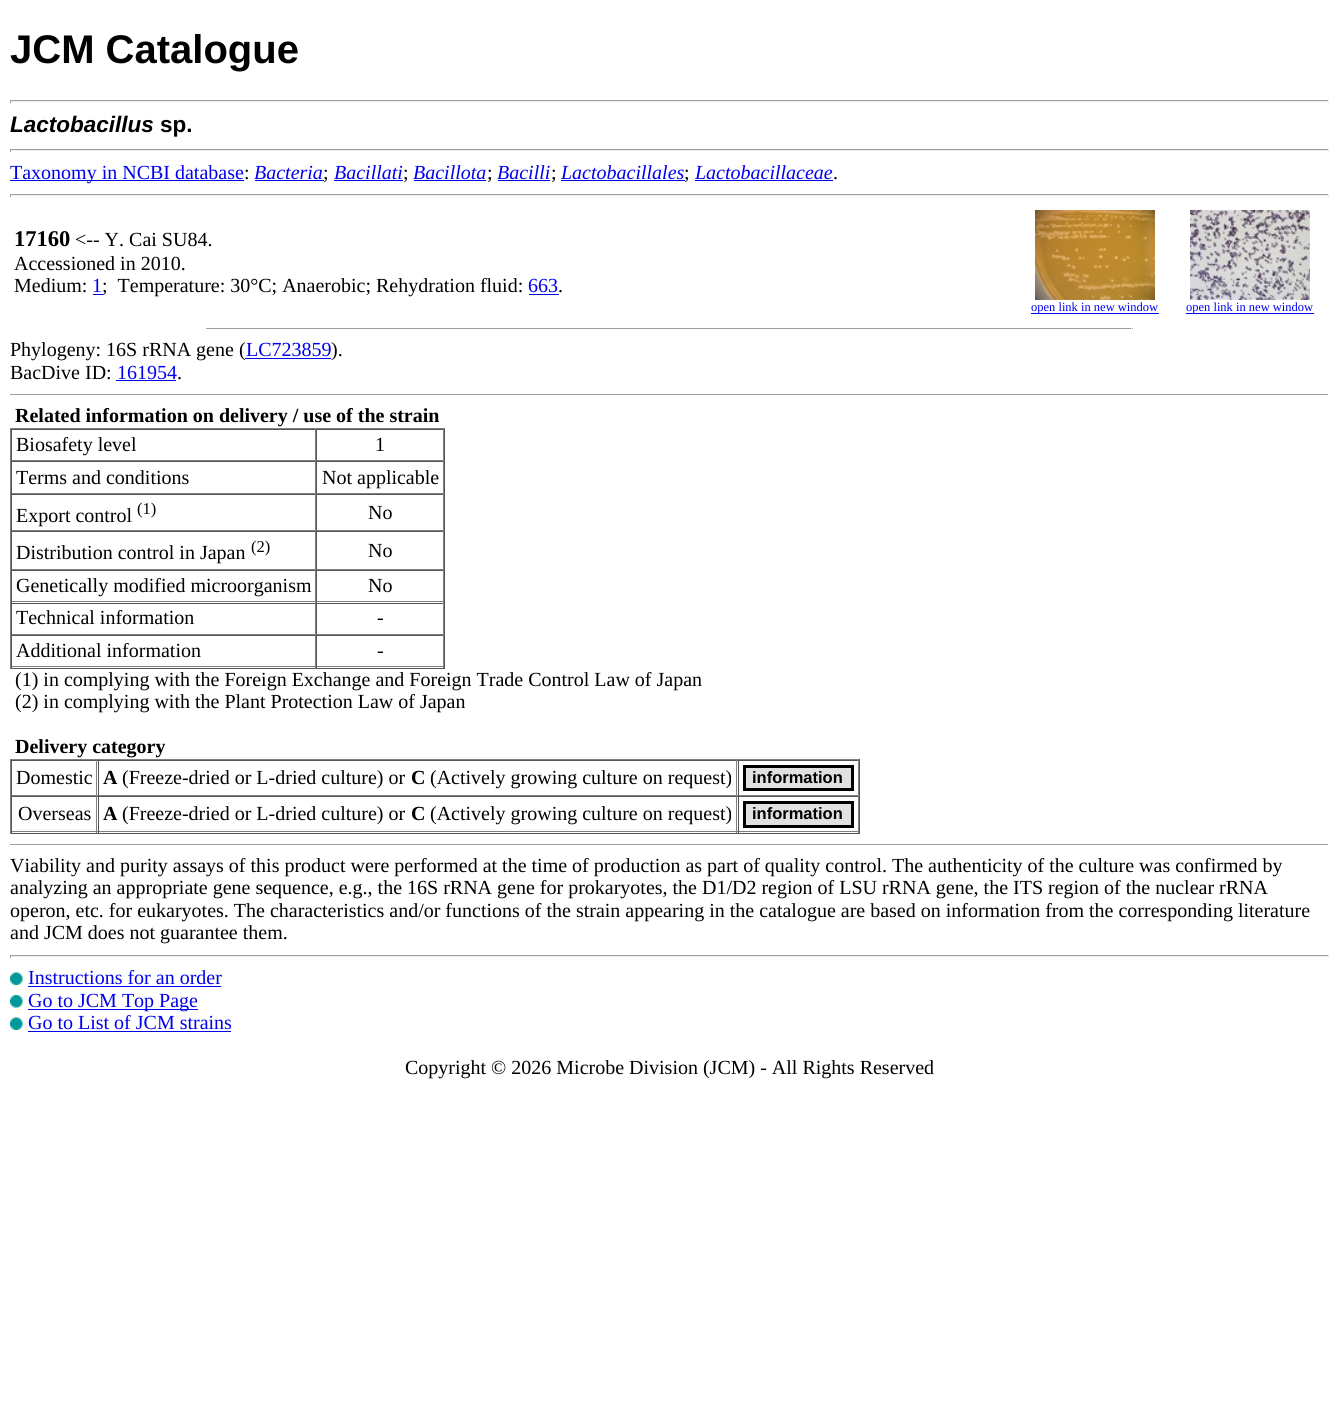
#include <cairo.h>
#include <math.h>
#include <stddef.h>

static cairo_t *c;
static void C(unsigned color){cairo_set_source_rgb(c, (color >> 16) / 255.0, (color >> 8 & 255) / 255.0, (color & 255) / 255.0);}
static void F(const char *family, double size, int italic, int bold){cairo_select_font_face(c, family, italic ? CAIRO_FONT_SLANT_ITALIC : CAIRO_FONT_SLANT_NORMAL,bold ? CAIRO_FONT_WEIGHT_BOLD : CAIRO_FONT_WEIGHT_NORMAL);cairo_set_font_size(c, size);}
static void T(double x, double y, const char *s){cairo_move_to(c, x, y);cairo_show_text(c, s);}
static void R(double x, double y, double w, double h){cairo_rectangle(c, x, y, w, h);cairo_fill(c);}
static void I(const char *path, double x, double y, double w, double h){cairo_surface_t *image = cairo_image_surface_create_from_png(path);cairo_save(c);cairo_set_source_surface(c, image, x, y);cairo_rectangle(c, x, y, w, h);cairo_fill(c);cairo_restore(c);cairo_surface_destroy(image);}
int main(void) {
cairo_surface_t *surface = cairo_image_surface_create(CAIRO_FORMAT_RGB24, 1338, 1415);
c = cairo_create(surface);
cairo_font_options_t *options = cairo_font_options_create();
cairo_font_options_set_hint_metrics(options, CAIRO_HINT_METRICS_OFF);
cairo_font_options_set_hint_style(options, CAIRO_HINT_STYLE_NONE);
cairo_set_font_options(c, options);
cairo_set_miter_limit(c, 4);
C(0xffffff);
cairo_paint(c);
F("Liberation Sans",40,0,1);
C(0x000000);
T(10,63,"JCM Catalogue");
C(0x9f9f9f);
R(10,100,1319,1);
C(0xeeeeee);
R(1328,100,1,3);
R(10,101,1319,1);
C(0x9f9f9f);
R(10,100,1,3);
F("Liberation Sans",22.5,1,1);
C(0x000000);
T(10,132,"Lactobacillus");
F("Liberation Sans",22.5,0,1);
T(160,132,"sp.");
C(0x9f9f9f);
R(10,149,1319,1);
C(0xeeeeee);
R(1328,149,1,3);
R(10,150,1319,1);
C(0x9f9f9f);
R(10,149,1,3);
C(0x0000ee);
R(10,180,234,1);
F("Liberation Serif",20,0,0);
T(10,179,"Taxonomy in NCBI database");
C(0x000000);
T(244,179,":");
F("Liberation Serif",20,1,0);
C(0x0000ee);
T(254,179,"Bacteria");
R(255,180,69,1);
F("Liberation Serif",20,0,0);
C(0x000000);
T(323,179,";");
F("Liberation Serif",20,1,0);
C(0x0000ee);
T(334,179,"Bacillati");
R(334,180,69,1);
F("Liberation Serif",20,0,0);
C(0x000000);
T(403,179,";");
F("Liberation Serif",20,1,0);
C(0x0000ee);
T(413,179,"Bacillota");
R(414,180,72,1);
F("Liberation Serif",20,0,0);
C(0x000000);
T(487,179,";");
F("Liberation Serif",20,1,0);
C(0x0000ee);
T(497,179,"Bacilli");
R(498,180,52,1);
F("Liberation Serif",20,0,0);
C(0x000000);
T(551,179,";");
F("Liberation Serif",20,1,0);
C(0x0000ee);
T(561,179,"Lactobacillales");
R(561,180,124,1);
F("Liberation Serif",20,0,0);
C(0x000000);
T(684,179,";");
F("Liberation Serif",20,1,0);
C(0x0000ee);
T(695,179,"Lactobacillaceae");
R(695,180,138,1);
F("Liberation Serif",20,0,0);
C(0x000000);
T(833,179,".");
C(0x9f9f9f);
R(10,194,1319,1);
C(0xeeeeee);
R(1328,194,1,3);
R(10,195,1319,1);
C(0x9f9f9f);
R(10,194,1,3);
F("Liberation Serif",22.5,0,1);
C(0x000000);
T(14,246,"17160");
F("Liberation Serif",20,0,0);
T(75,246,"<-- Y. Cai SU84.");
T(14,270,"Accessioned in 2010.");
T(14,292,"Medium:");
C(0x0000ee);
T(92,292,"1");
R(93,294,10,1);
C(0x000000);
T(102,292,";  Temperature: 30°C; Anaerobic; Rehydration fluid:");
C(0x0000ee);
T(528,292,"663");
R(529,294,30,1);
C(0x000000);
T(558,292,".");
I("1.png",1035,210,120,90);
C(0x0000ee);
R(1031,313,128,1);
F("Liberation Serif",12.5,0,0);
T(1031,311,"open link in new window");
I("2.png",1190,210,120,90);
R(1186,313,128,1);
T(1186,311,"open link in new window");
C(0x9f9f9f);
R(206,328,927,1);
C(0xeeeeee);
R(1131,328,1,1);
F("Liberation Serif",20,0,0);
C(0x000000);
T(10,356,"Phylogeny: 16S rRNA gene (");
C(0x0000ee);
T(246,356,"LC723859");
R(245,358,86,1);
C(0x000000);
T(331,356,").");
T(10,379,"BacDive ID:");
C(0x0000ee);
T(117,379,"161954");
R(116,380,60,1);
C(0x000000);
T(177,379,".");
C(0x9f9f9f);
R(10,394,1319,1);
C(0xeeeeee);
R(1328,394,1,1);
F("Liberation Serif",20,0,1);
C(0x000000);
T(15,422,"Related information on delivery / use of the strain");
C(0x808080);
R(10,428,435,1);
C(0x555555);
R(444,428,1,241);
R(10,668,435,1);
C(0x808080);
R(10,428,1,241);
C(0x555555);
R(11,429,433,1);
C(0x808080);
R(315,429,1,32);
R(11,460,305,1);
C(0x555555);
R(11,429,1,32);
F("Liberation Serif",20,0,0);
C(0x000000);
T(16,451,"Biosafety level");
C(0x808080);
R(443,429,1,32);
R(316,460,128,1);
C(0x555555);
R(316,429,1,32);
C(0x000000);
T(375,451,"1");
C(0x555555);
R(11,461,433,1);
C(0x808080);
R(315,461,1,33);
R(11,493,305,1);
C(0x555555);
R(11,461,1,33);
C(0x000000);
T(16,484,"Terms and conditions");
C(0x808080);
R(443,461,1,33);
R(316,493,128,1);
C(0x555555);
R(316,461,1,33);
C(0x000000);
T(322,484,"Not applicable");
C(0x555555);
R(11,494,433,1);
C(0x808080);
R(315,494,1,37);
R(11,530,305,1);
C(0x555555);
R(11,494,1,37);
C(0x000000);
T(16,522,"Export control");
F("Liberation Serif",16.5,0,0);
T(137,514,"(1)");
C(0x808080);
R(443,494,1,37);
R(316,530,128,1);
C(0x555555);
R(316,494,1,37);
F("Liberation Serif",20,0,0);
C(0x000000);
T(368,519,"No");
C(0x555555);
R(11,531,433,1);
C(0x808080);
R(315,531,1,39);
R(11,569,305,1);
C(0x555555);
R(11,531,1,39);
C(0x000000);
T(16,559,"Distribution control in Japan");
F("Liberation Serif",16.5,0,0);
T(251,552,"(2)");
C(0x808080);
R(443,531,1,39);
R(316,569,128,1);
C(0x555555);
R(316,531,1,39);
F("Liberation Serif",20,0,0);
C(0x000000);
T(368,557,"No");
C(0x555555);
R(11,570,433,1);
C(0x808080);
R(315,570,1,33);
R(11,601,305,1);
C(0x555555);
R(11,570,1,33);
C(0x000000);
T(16,592,"Genetically modified microorganism");
C(0x808080);
R(443,570,1,33);
R(316,601,128,1);
C(0x555555);
R(316,570,1,33);
C(0x000000);
T(368,592,"No");
C(0x555555);
R(11,603,433,1);
C(0x808080);
R(315,603,1,32);
R(11,634,305,1);
C(0x555555);
R(11,603,1,32);
C(0x000000);
T(16,624,"Technical information");
C(0x808080);
R(443,603,1,32);
R(316,634,128,1);
C(0x555555);
R(316,603,1,32);
C(0x000000);
T(377,624,"-");
C(0x555555);
R(11,635,433,1);
C(0x808080);
R(315,635,1,33);
R(11,666,305,1);
C(0x555555);
R(11,635,1,33);
C(0x000000);
T(16,657,"Additional information");
C(0x808080);
R(443,635,1,33);
R(316,666,128,1);
C(0x555555);
R(316,635,1,33);
C(0x000000);
T(377,657,"-");
T(15,686,"(1) in complying with the Foreign Exchange and Foreign Trade Control Law of Japan");
T(15,708,"(2) in complying with the Plant Protection Law of Japan");
F("Liberation Serif",20,0,1);
T(15,753,"Delivery category");
C(0x808080);
R(10,759,850,1);
C(0x555555);
R(859,759,1,75);
R(10,833,850,1);
C(0x808080);
R(10,759,1,75);
C(0x555555);
R(11,760,848,1);
C(0x808080);
R(96,760,1,36);
R(11,795,87,1);
C(0x555555);
R(11,760,1,36);
F("Liberation Serif",20,0,0);
C(0x000000);
T(16,784,"Domestic");
C(0x808080);
R(736,760,1,36);
R(98,795,640,1);
C(0x555555);
R(98,760,1,36);
F("Liberation Serif",20,0,1);
C(0x000000);
T(103,784,"A");
F("Liberation Serif",20,0,0);
T(122,784,"(Freeze-dried or L-dried culture) or");
F("Liberation Serif",20,0,1);
T(411,784,"C");
F("Liberation Serif",20,0,0);
T(430,784,"(Actively growing culture on request)");
C(0x808080);
R(858,760,1,36);
R(738,795,121,1);
C(0x555555);
R(738,760,1,36);
C(0xe1e1e1);
cairo_rectangle(c,744.5,766.5,108,23);
cairo_fill_preserve(c);
C(0x000000);
cairo_set_line_width(c,3);
cairo_stroke(c);
F("Liberation Sans",16.5,0,1);
T(752,783,"information");
C(0x555555);
R(11,796,848,1);
C(0x808080);
R(96,796,1,37);
R(11,831,87,1);
C(0x555555);
R(11,796,1,37);
F("Liberation Serif",20,0,0);
C(0x000000);
T(18,820,"Overseas");
C(0x808080);
R(736,796,1,37);
R(98,831,640,1);
C(0x555555);
R(98,796,1,37);
F("Liberation Serif",20,0,1);
C(0x000000);
T(103,820,"A");
F("Liberation Serif",20,0,0);
T(122,820,"(Freeze-dried or L-dried culture) or");
F("Liberation Serif",20,0,1);
T(411,820,"C");
F("Liberation Serif",20,0,0);
T(430,820,"(Actively growing culture on request)");
C(0x808080);
R(858,796,1,37);
R(738,831,121,1);
C(0x555555);
R(738,796,1,37);
C(0xe1e1e1);
cairo_rectangle(c,744.5,802.5,108,24);
cairo_fill_preserve(c);
C(0x000000);
cairo_stroke(c);
F("Liberation Sans",16.5,0,1);
T(752,819,"information");
C(0x9f9f9f);
R(10,844,1319,1);
C(0xeeeeee);
R(1328,844,1,1);
F("Liberation Serif",20,0,0);
C(0x000000);
T(10,872,"Viability and purity assays of this product were performed at the time of production as part of quality control. The authenticity of the culture was confirmed by");
T(10,894,"analyzing an appropriate gene sequence, e.g., the 16S rRNA gene for prokaryotes, the D1/D2 region of LSU rRNA gene, the ITS region of the nuclear rRNA");
T(10,917,"operon, etc. for eukaryotes. The characteristics and/or functions of the strain appearing in the catalogue are based on information from the corresponding literature");
T(10,939,"and JCM does not guarantee them.");
C(0x9f9f9f);
R(10,955,1319,1);
C(0xeeeeee);
R(1328,955,1,3);
R(10,956,1319,1);
C(0x9f9f9f);
R(10,955,1,3);
I("3.png",10,972,13,13);
C(0x0000ee);
T(28,984,"Instructions for an order");
R(28,986,193,1);
I("4.png",10,995,13,13);
R(28,1009,170,1);
T(28,1007,"Go to JCM Top Page");
I("3.png",10,1017,13,13);
T(28,1029,"Go to List of JCM strains");
R(28,1031,203,1);
C(0x000000);
T(405,1074,"Copyright © 2026 Microbe Division (JCM) - All Rights Reserved");
cairo_surface_write_to_png(surface, "o.png");
cairo_font_options_destroy(options);
cairo_destroy(c);
cairo_surface_destroy(surface);
return 0;
}
